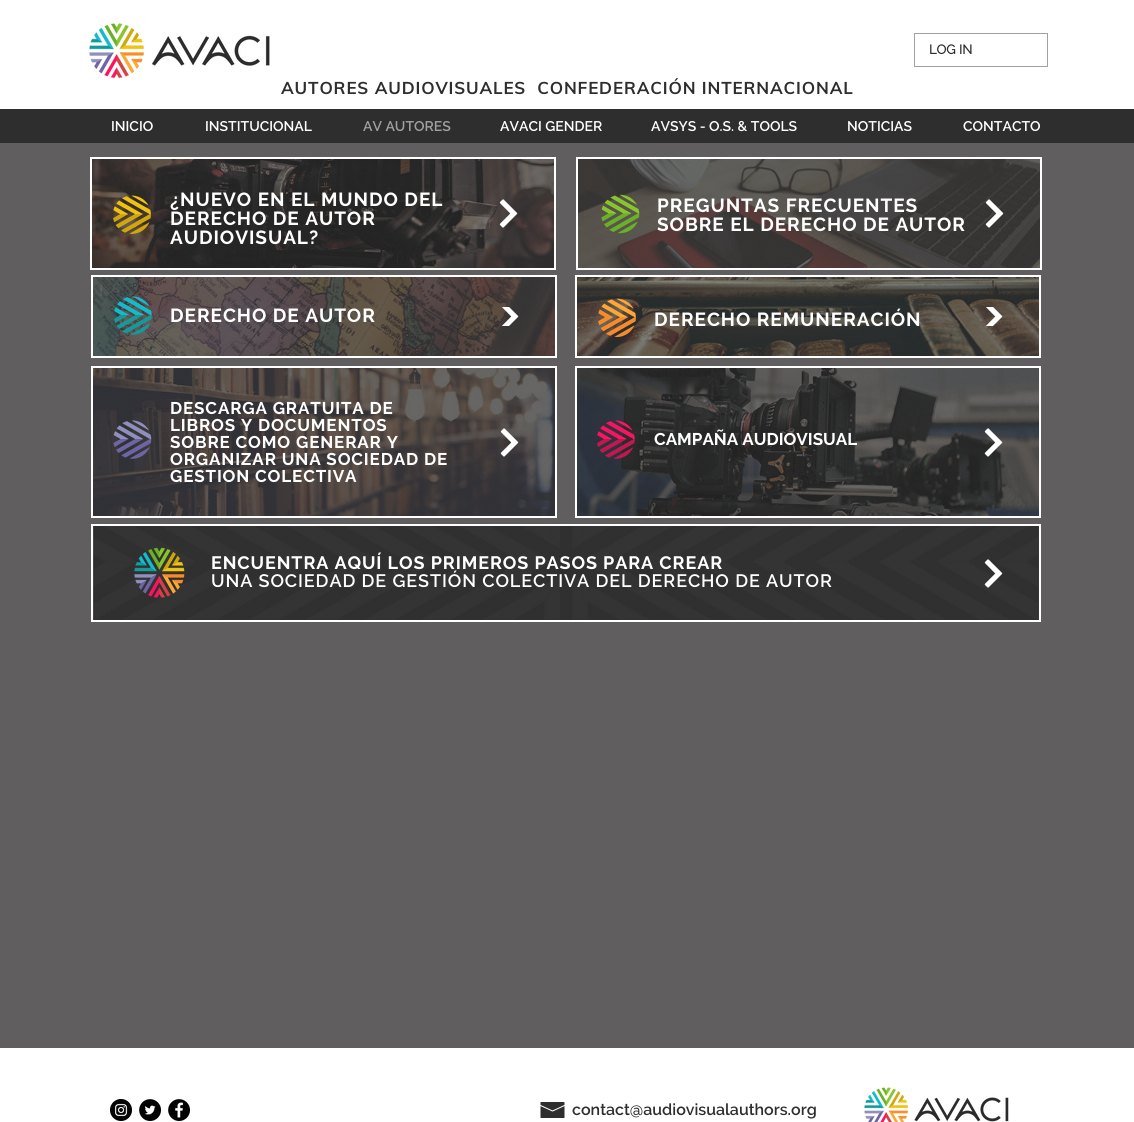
#include <cairo.h>
#include <math.h>
#include <stddef.h>

static cairo_t *c;
static void C(unsigned color){cairo_set_source_rgb(c, (color >> 16) / 255.0, (color >> 8 & 255) / 255.0, (color & 255) / 255.0);}
static void F(const char *family, double size, int italic, int bold){cairo_select_font_face(c, family, italic ? CAIRO_FONT_SLANT_ITALIC : CAIRO_FONT_SLANT_NORMAL,bold ? CAIRO_FONT_WEIGHT_BOLD : CAIRO_FONT_WEIGHT_NORMAL);cairo_set_font_size(c, size);}
static void T(double x, double y, const char *s){cairo_move_to(c, x, y);cairo_show_text(c, s);}
static void L(double x, double y, const char *s, double letter, double word){cairo_move_to(c, x, y);while (*s) {char ch[5] = {0};int n = 0;do ch[n++] = *s++; while ((*s & 0xC0) == 0x80);cairo_show_text(c, ch);cairo_rel_move_to(c, letter + word * (*ch == ' '), 0);}}
static void R(double x, double y, double w, double h){cairo_rectangle(c, x, y, w, h);cairo_fill(c);}
static void I(const char *path, double x, double y, double w, double h){cairo_surface_t *image = cairo_image_surface_create_from_png(path);cairo_save(c);cairo_set_source_surface(c, image, x, y);cairo_rectangle(c, x, y, w, h);cairo_fill(c);cairo_restore(c);cairo_surface_destroy(image);}
int main(void) {
cairo_surface_t *surface = cairo_image_surface_create(CAIRO_FORMAT_RGB24, 1134, 1122);
c = cairo_create(surface);
cairo_font_options_t *options = cairo_font_options_create();
cairo_font_options_set_hint_metrics(options, CAIRO_HINT_METRICS_OFF);
cairo_font_options_set_hint_style(options, CAIRO_HINT_STYLE_NONE);
cairo_set_font_options(c, options);
cairo_set_miter_limit(c, 4);
C(0x605e5e);
cairo_paint(c);
C(0xffffff);
R(0,0,1134,109);
I("1.png",89,23,181,55);
cairo_rectangle(c,914.5,33.5,133,33);
C(0xa1a1a0);
cairo_set_line_width(c,1);
cairo_stroke(c);
F("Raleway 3",13,0,1);
C(0x2f2e2e);
T(929,54,"LOG IN");
F("Muli",17,0,1);
L(281,94,"AUTORES AUDIOVISUALES  CONFEDERACIÓN INTERNACIONAL",.85,0);
R(0,109,1134,34);
F("Raleway SemiBold",14,0,0);
C(0xffffff);
T(111,131,"INICIO");
T(205,131,"INSTITUCIONAL");
C(0xa0a09f);
T(363,131,"AV AUTORES");
C(0xffffff);
T(500,131,"AVACI GENDER");
T(651,131,"AVSYS - O.S. & TOOLS");
T(847,131,"NOTICIAS");
T(963,131,"CONTACTO");
I("2.png",92,159,462,109);
cairo_rectangle(c,91,158,464,111);
cairo_set_line_width(c,2);
cairo_stroke(c);
I("3.png",499,199,19,29);
I("4.png",578,159,462,109);
cairo_rectangle(c,577,158,464,111);
cairo_stroke(c);
I("5.png",985,199,19,29);
I("6.png",113,195,38,39);
F("Raleway",19,0,1);
L(170,206,"¿NUEVO EN EL MUNDO DEL",.95,0);
L(170,225,"DERECHO DE AUTOR",.95,0);
L(170,244,"AUDIOVISUAL?",.95,0);
I("7.png",601,194,39,40);
L(657,212,"PREGUNTAS FRECUENTES",.95,0);
L(657,231,"SOBRE EL DERECHO DE AUTOR",.95,0);
I("8.png",93,277,462,79);
cairo_rectangle(c,92,276,464,81);
cairo_stroke(c);
I("9.png",501,307,18,19);
I("10.png",577,277,462,79);
cairo_rectangle(c,576,276,464,81);
cairo_stroke(c);
I("11.png",986,307,17,19);
I("12.png",114,296,38,39);
L(170,322,"DERECHO DE AUTOR",.95,0);
I("13.png",598,298,39,39);
L(654,326,"DERECHO REMUNERACIÓN",.95,0);
I("14.png",93,368,462,148);
cairo_rectangle(c,92,367,464,150);
cairo_stroke(c);
I("15.png",500,428,19,29);
I("16.png",577,368,462,148);
cairo_rectangle(c,576,367,464,150);
cairo_stroke(c);
I("17.png",984,428,19,29);
I("18.png",113,420,39,39);
F("Raleway",17,0,1);
L(170,414,"DESCARGA GRATUITA DE",.85,0);
L(170,431,"LIBROS Y DOCUMENTOS",.85,0);
L(170,448,"SOBRE COMO",.85,0);
F("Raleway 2",17,0,1);
L(296,448,"GENERAR Y",.85,0);
L(170,465,"ORGANIZAR UNA SOCIEDAD DE",.85,0);
L(170,482,"GESTION COLECTIVA",.85,0);
I("19.png",597,420,38,39);
F("Raleway",17,0,1);
T(654,445,"CAMPAÑA AUDIOVISUAL");
I("20.png",93,526,946,94);
cairo_rectangle(c,92,525,948,96);
cairo_stroke(c);
I("21.png",984,559,19,29);
I("22.png",134,547,51,51);
F("Raleway",18,0,1);
L(211,569,"ENCUENTRA AQUÍ LOS PRIMEROS PASOS PARA CREAR",.9,0);
F("Raleway SemiBold",18,0,0);
L(211,587,"UNA SOCIEDAD DE GESTIÓN COLECTIVA DEL DERECHO DE AUTOR",.9,0);
R(0,1048,1134,74);
I("23.png",110,1099,22,22);
I("24.png",139,1099,22,22);
I("25.png",168,1099,22,22);
I("26.png",540,1102,25,16);
F("Raleway SemiBold",16,0,0);
C(0x2f2e2e);
T(572,1115,"contact@audiovisualauthors.org");
I("27.png",864,1087,145,35);
cairo_surface_write_to_png(surface, "o.png");
cairo_font_options_destroy(options);
cairo_destroy(c);
cairo_surface_destroy(surface);
return 0;
}
